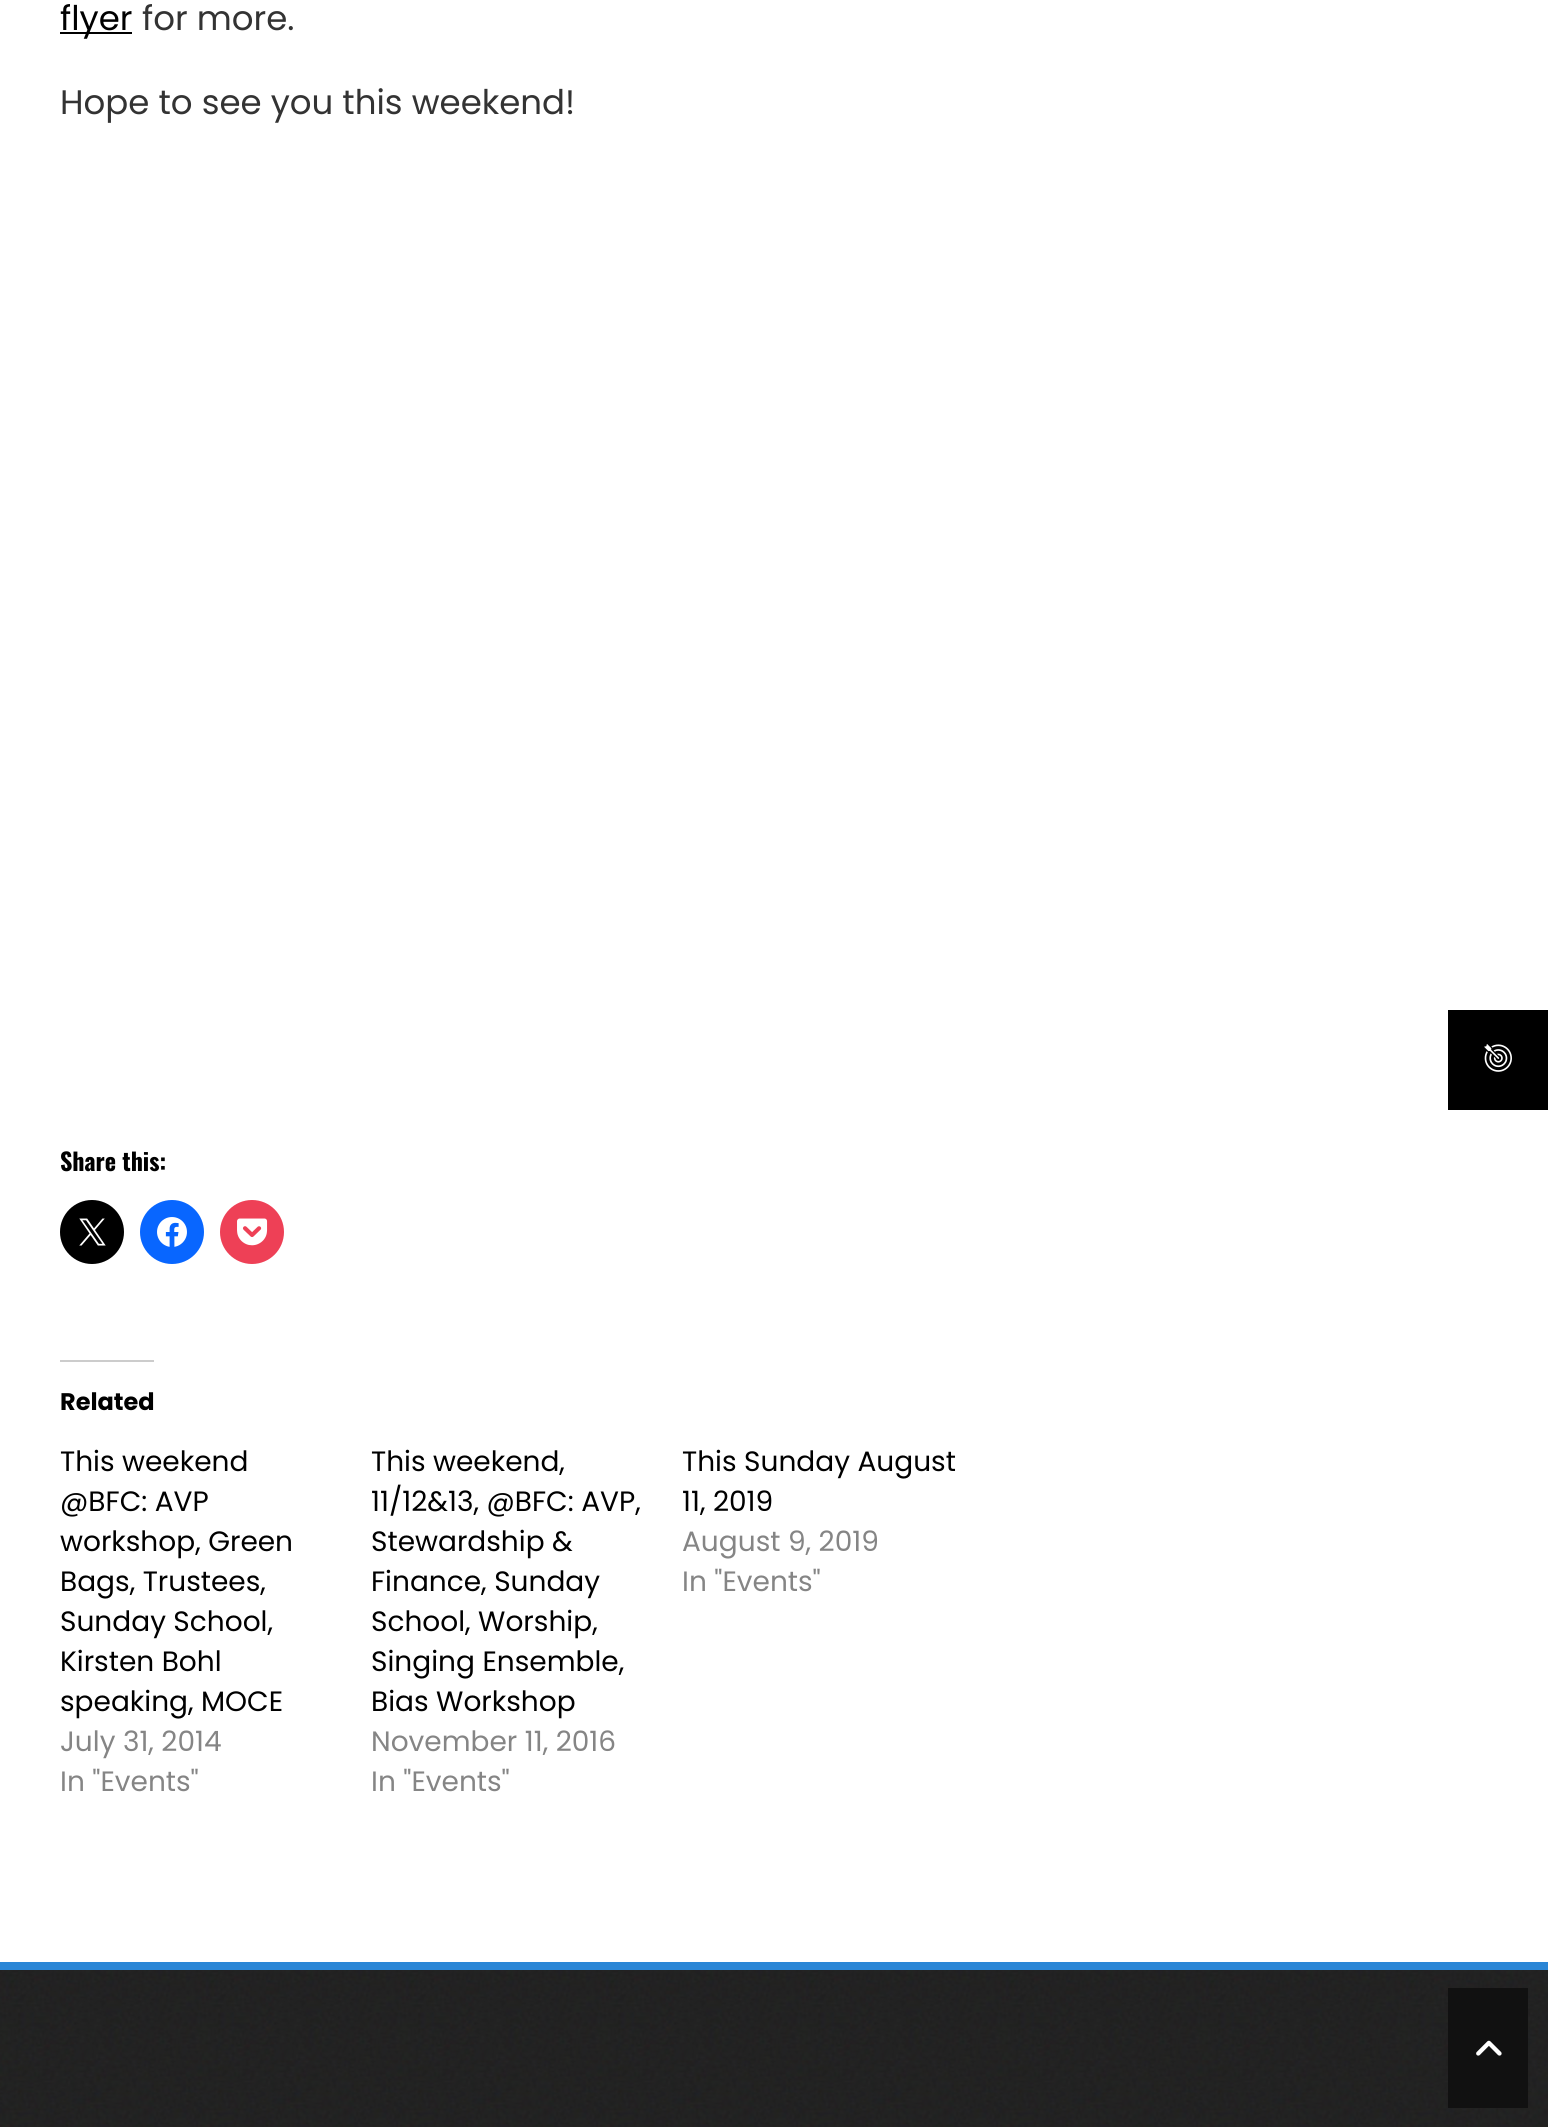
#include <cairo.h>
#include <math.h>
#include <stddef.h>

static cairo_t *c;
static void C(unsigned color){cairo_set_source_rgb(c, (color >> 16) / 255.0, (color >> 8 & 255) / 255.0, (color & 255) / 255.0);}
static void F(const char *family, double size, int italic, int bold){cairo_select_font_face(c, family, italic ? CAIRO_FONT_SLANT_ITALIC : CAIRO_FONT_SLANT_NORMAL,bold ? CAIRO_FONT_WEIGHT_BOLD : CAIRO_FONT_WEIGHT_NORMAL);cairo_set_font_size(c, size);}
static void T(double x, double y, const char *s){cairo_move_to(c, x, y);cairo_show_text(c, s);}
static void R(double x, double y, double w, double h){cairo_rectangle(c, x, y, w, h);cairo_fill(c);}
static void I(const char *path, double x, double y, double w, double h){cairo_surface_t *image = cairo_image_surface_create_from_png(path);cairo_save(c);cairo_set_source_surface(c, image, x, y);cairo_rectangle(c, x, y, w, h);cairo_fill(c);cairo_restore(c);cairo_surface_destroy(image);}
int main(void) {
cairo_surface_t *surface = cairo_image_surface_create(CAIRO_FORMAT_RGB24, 1548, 2127);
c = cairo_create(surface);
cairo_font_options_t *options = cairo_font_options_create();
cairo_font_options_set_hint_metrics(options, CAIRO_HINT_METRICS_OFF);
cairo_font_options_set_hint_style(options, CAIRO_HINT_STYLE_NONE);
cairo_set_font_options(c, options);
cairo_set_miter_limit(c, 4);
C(0xffffff);
cairo_paint(c);
C(0x000000);
R(60,32,72,2);
F("Poppins",34,0,0);
T(60,30,"flyer");
C(0x333333);
T(142,30,"for more.");
T(60,114,"Hope to see you this weekend!");
F("Oswald",24,0,1);
C(0x000000);
T(60,1171,"Share this:");
cairo_new_path(c);
cairo_arc(c,92,1232,32,0,2 * M_PI);
cairo_fill(c);
I("1.png",79,1218,27,28);
C(0x0866ff);
cairo_arc(c,172,1232,32,0,2 * M_PI);
cairo_fill(c);
I("2.png",157,1217,30,30);
C(0xee4056);
cairo_arc(c,252,1232,32,0,2 * M_PI);
cairo_fill(c);
I("3.png",237,1218,31,28);
C(0xcccccc);
R(60,1360,94,2);
F("Poppins",24,0,1);
C(0x000000);
T(60,1410,"Related");
F("Poppins",28,0,0);
T(60,1471,"This weekend");
T(60,1511,"@BFC: AVP");
T(60,1551,"workshop, Green");
T(60,1591,"Bags, Trustees,");
T(60,1631,"Sunday School,");
T(60,1671,"Kirsten Bohl");
T(60,1711,"speaking, MOCE");
C(0x858585);
T(60,1751,"July 31, 2014");
T(60,1791,"In \"Events\"");
C(0x000000);
T(371,1471,"This weekend,");
T(371,1511,"11/12&13, @BFC: AVP,");
T(371,1551,"Stewardship &");
T(371,1591,"Finance, Sunday");
T(371,1631,"School, Worship,");
T(371,1671,"Singing Ensemble,");
T(371,1711,"Bias Workshop");
C(0x858585);
T(371,1751,"November 11, 2016");
T(371,1791,"In \"Events\"");
C(0x000000);
T(682,1471,"This Sunday August");
T(682,1511,"11, 2019");
C(0x858585);
T(682,1551,"August 9, 2019");
T(682,1591,"In \"Events\"");
I("4.png",0,1970,1548,157);
C(0x2a86d6);
R(0,1962,1548,8);
C(0x000000);
R(1448,1010,100,100);
I("5.png",1484,1044,28,28);
C(0x111111);
R(1448,1988,80,120);
I("6.png",1476,2040,26,16);
cairo_surface_write_to_png(surface, "o.png");
cairo_font_options_destroy(options);
cairo_destroy(c);
cairo_surface_destroy(surface);
return 0;
}
